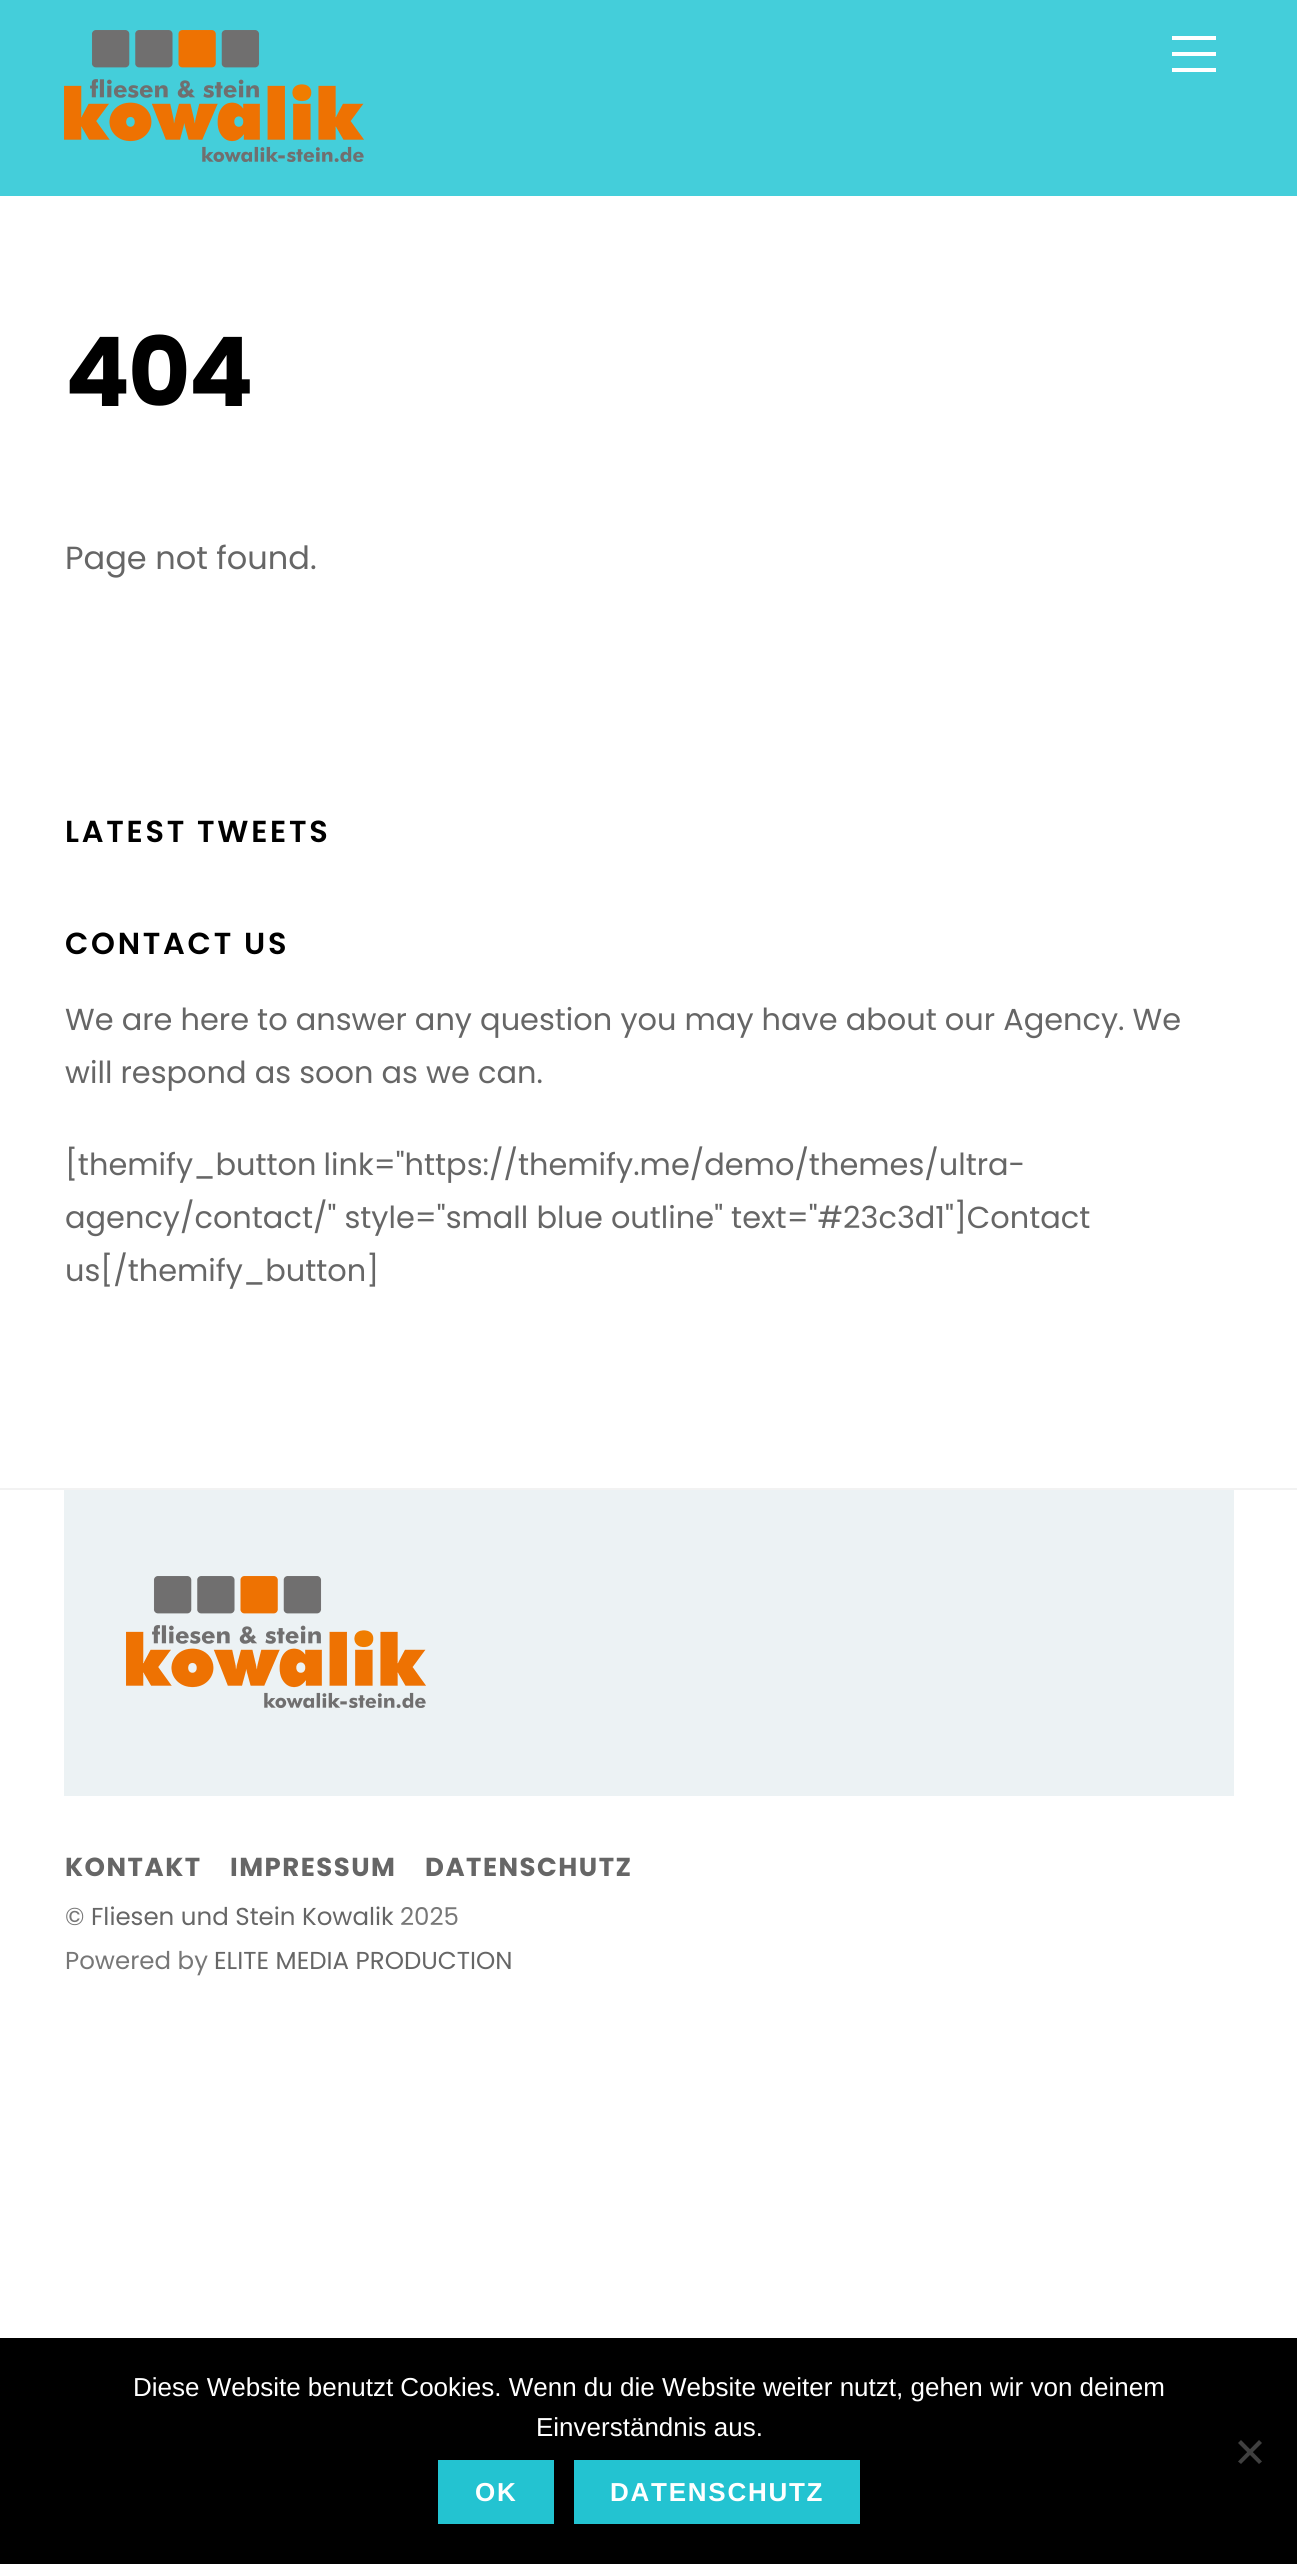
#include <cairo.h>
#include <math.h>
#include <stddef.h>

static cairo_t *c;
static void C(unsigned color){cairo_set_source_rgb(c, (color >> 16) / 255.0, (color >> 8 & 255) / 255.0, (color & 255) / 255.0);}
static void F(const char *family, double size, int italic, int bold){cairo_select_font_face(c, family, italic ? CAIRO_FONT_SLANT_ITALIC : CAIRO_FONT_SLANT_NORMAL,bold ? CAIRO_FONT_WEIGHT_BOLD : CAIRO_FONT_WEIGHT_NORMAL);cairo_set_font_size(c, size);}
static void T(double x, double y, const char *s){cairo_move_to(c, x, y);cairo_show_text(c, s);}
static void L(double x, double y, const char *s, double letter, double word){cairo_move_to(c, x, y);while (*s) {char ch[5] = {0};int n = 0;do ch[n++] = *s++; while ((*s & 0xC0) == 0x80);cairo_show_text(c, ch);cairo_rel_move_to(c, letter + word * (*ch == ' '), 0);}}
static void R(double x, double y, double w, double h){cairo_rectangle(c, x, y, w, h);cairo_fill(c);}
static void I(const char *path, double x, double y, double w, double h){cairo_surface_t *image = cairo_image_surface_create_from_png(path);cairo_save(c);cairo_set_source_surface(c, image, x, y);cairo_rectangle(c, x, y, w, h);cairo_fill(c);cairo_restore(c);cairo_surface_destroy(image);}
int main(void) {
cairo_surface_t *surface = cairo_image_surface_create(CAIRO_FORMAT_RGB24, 1297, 2564);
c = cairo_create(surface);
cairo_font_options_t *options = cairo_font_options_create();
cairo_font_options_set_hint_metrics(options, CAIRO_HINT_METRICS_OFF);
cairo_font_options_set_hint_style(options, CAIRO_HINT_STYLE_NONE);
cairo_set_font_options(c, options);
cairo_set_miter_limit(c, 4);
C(0xffffff);
cairo_paint(c);
C(0x44ceda);
R(0,0,1297,196);
I("1.png",64,30,300,132);
C(0xffffff);
R(1172,68,44,4);
R(1172,36,44,4);
R(1172,52,44,4);
F("Poppins",96,0,1);
C(0x000000);
L(65,406,"404",-2,0);
F("Poppins",32,0,0);
C(0x666666);
T(65,569,"Page not found.");
F("Poppins SemiBold",30.4,0,0);
C(0x000000);
L(65,842,"LATEST TWEETS",2.75,0);
L(65,954,"CONTACT US",2.75,0);
F("Poppins",30.4,0,0);
C(0x666666);
T(65,1030,"We are here to answer any question you may have about our Agency. We");
T(65,1083,"will respond as soon as we can.");
L(65,1175,"[themify_button link=\"https://themify.me/demo/themes/ultra-",0,-1);
T(65,1228,"agency/contact/\" style=\"small blue outline\" text=\"#23c3d1\"]Contact");
T(65,1281,"us[/themify_button]");
C(0xf2f2f2);
R(0,1488,1297,2);
C(0xecf2f4);
R(64,1490,1170,306);
I("2.png",126,1576,300,132);
F("Poppins",26,0,1);
C(0x666666);
L(65,1876,"KONTAKT",1.5,0);
L(230,1876,"IMPRESSUM",1.5,0);
L(425,1876,"DATENSCHUTZ",1.5,0);
F("Poppins",24.5,0,0);
C(0x777777);
T(65,1925,"©");
C(0x666666);
T(91,1925,"Fliesen und Stein Kowalik");
C(0x777777);
T(400,1925,"2025");
T(65,1969,"Powered by");
C(0x666666);
T(214,1969,"ELITE MEDIA PRODUCTION");
C(0x000000);
R(0,2338,1297,226);
F("Liberation Sans",26,0,0);
C(0xffffff);
T(133,2396,"Diese Website benutzt Cookies. Wenn du die Website weiter nutzt, gehen wir von deinem");
T(536,2436,"Einverständnis aus.");
C(0x404040);
cairo_new_path(c);
cairo_move_to(c,1259,2440);
cairo_line_to(c,1262,2443);
cairo_line_to(c,1241,2464);
cairo_line_to(c,1238,2461.5);
cairo_close_path(c);
cairo_fill(c);
cairo_new_path(c);
cairo_move_to(c,1238,2443);
cairo_line_to(c,1241,2440);
cairo_line_to(c,1262,2461.5);
cairo_line_to(c,1259,2464);
cairo_close_path(c);
cairo_fill(c);
C(0x23c3d1);
R(438,2460,116,64);
F("Liberation Sans",26,0,1);
C(0xffffff);
L(475,2501,"OK",1.75,0);
C(0x23c3d1);
R(574,2460,286,64);
C(0xffffff);
L(610,2501,"DATENSCHUTZ",1.75,0);
cairo_surface_write_to_png(surface, "o.png");
cairo_font_options_destroy(options);
cairo_destroy(c);
cairo_surface_destroy(surface);
return 0;
}
